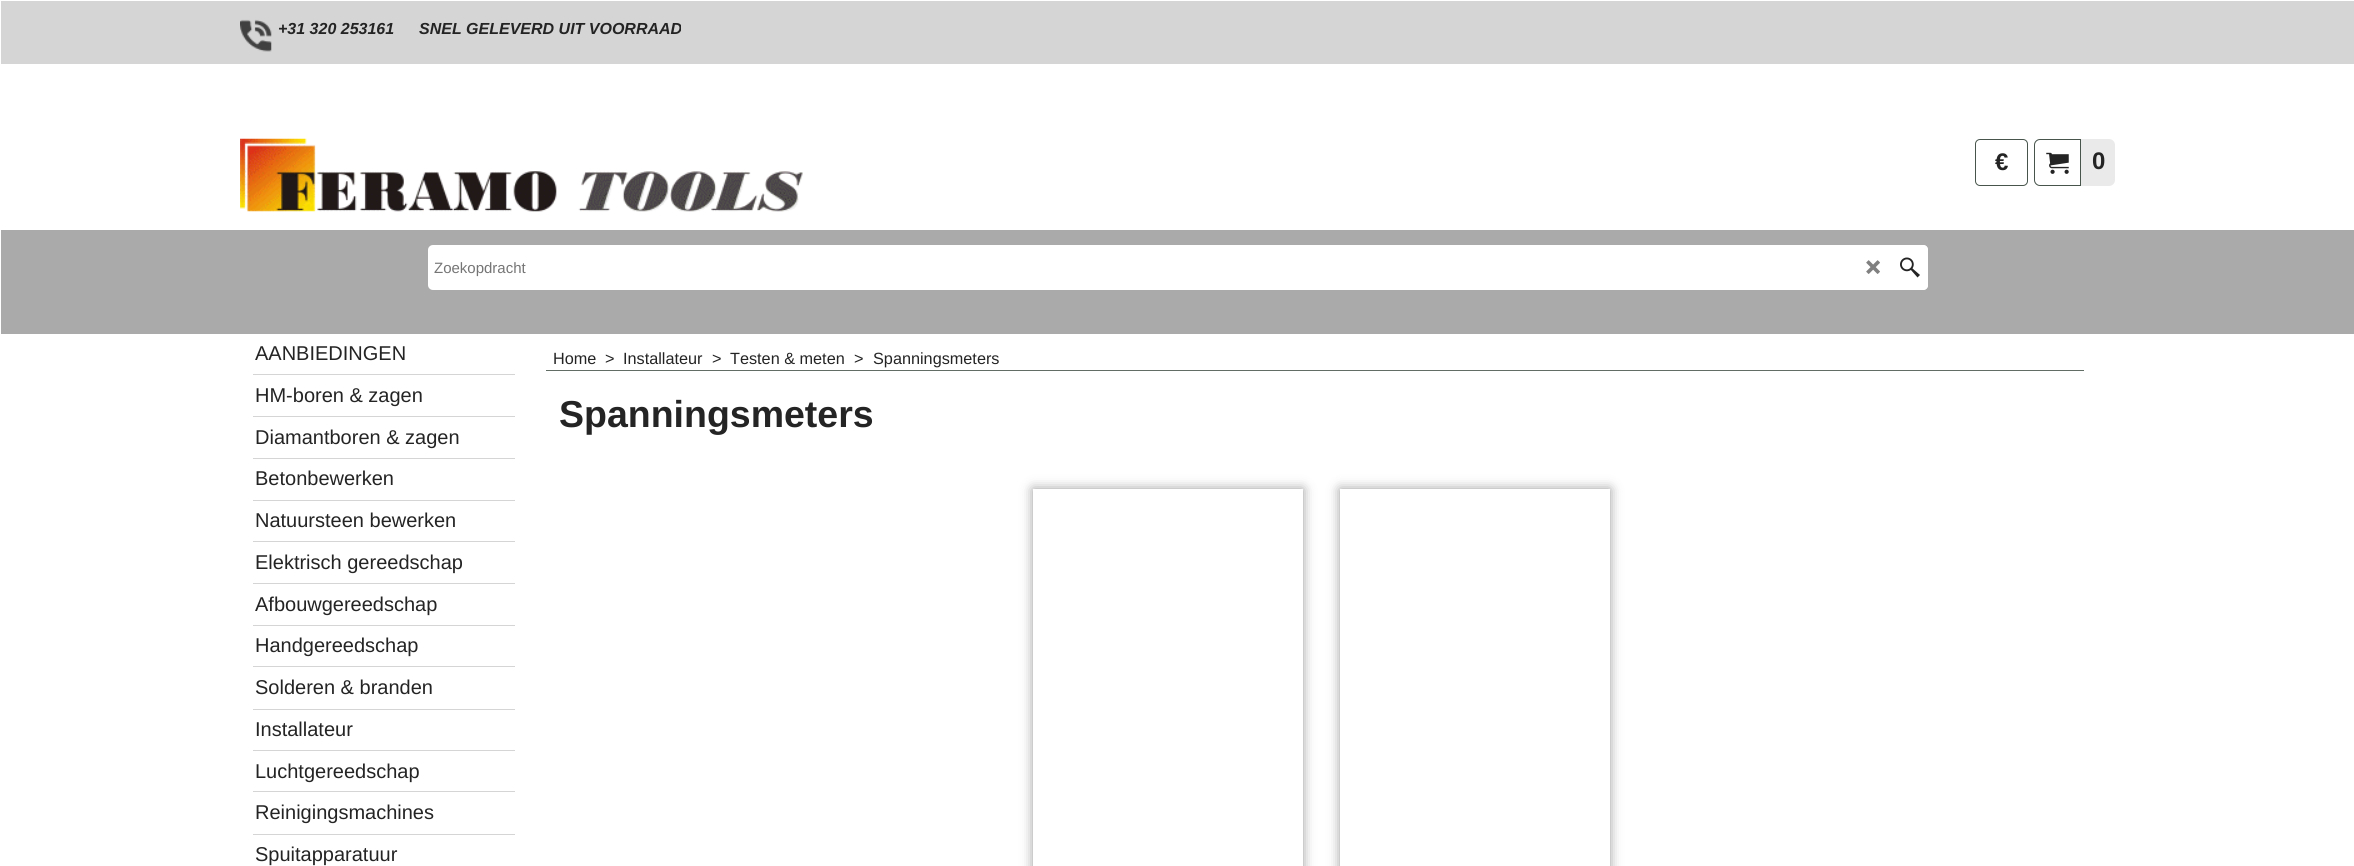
#include <cairo.h>
#include <math.h>
#include <stddef.h>

static cairo_t *c;
static void C(unsigned color){cairo_set_source_rgb(c, (color >> 16) / 255.0, (color >> 8 & 255) / 255.0, (color & 255) / 255.0);}
static void F(const char *family, double size, int italic, int bold){cairo_select_font_face(c, family, italic ? CAIRO_FONT_SLANT_ITALIC : CAIRO_FONT_SLANT_NORMAL,bold ? CAIRO_FONT_WEIGHT_BOLD : CAIRO_FONT_WEIGHT_NORMAL);cairo_set_font_size(c, size);}
static void T(double x, double y, const char *s){cairo_move_to(c, x, y);cairo_show_text(c, s);}
static void R(double x, double y, double w, double h){cairo_rectangle(c, x, y, w, h);cairo_fill(c);}
static void Q(double x, double y, double w, double h, double r){cairo_new_sub_path(c);cairo_arc(c, x + w - r, y + h - r, r, 0, M_PI / 2);cairo_arc(c, x + r, y + h - r, r, M_PI / 2, M_PI);cairo_arc(c, x + r, y + r, r, M_PI, 1.5 * M_PI);cairo_arc(c, x + w - r, y + r, r, 1.5 * M_PI, 2 * M_PI);cairo_close_path(c);}
static void S(double x, double y, double w, double h, double r, double blur, double alpha){cairo_push_group_with_content(c, CAIRO_CONTENT_ALPHA);cairo_set_operator(c, CAIRO_OPERATOR_SOURCE);for (int i = 15; i >= -15 && fmin(w, h) + blur * i / 3 > 0; i -= 2) {double e = blur * i / 6;cairo_set_source_rgba(c, 0, 0, 0, alpha * erfc((i - 1) / 8.5) / 2);Q(x - e, y - e, w + 2 * e, h + 2 * e, fmax(0, fmin(r + e + blur * .6, fmin(w, h) / 2 + e)));cairo_fill(c);}cairo_pattern_t *soft = cairo_pop_group(c);cairo_mask(c, soft);cairo_pattern_destroy(soft);}
static void I(const char *path, double x, double y, double w, double h){cairo_surface_t *image = cairo_image_surface_create_from_png(path);cairo_save(c);cairo_set_source_surface(c, image, x, y);cairo_rectangle(c, x, y, w, h);cairo_fill(c);cairo_restore(c);cairo_surface_destroy(image);}
int main(void) {
cairo_surface_t *surface = cairo_image_surface_create(CAIRO_FORMAT_RGB24, 2354, 866);
c = cairo_create(surface);
cairo_font_options_t *options = cairo_font_options_create();
cairo_font_options_set_hint_metrics(options, CAIRO_HINT_METRICS_OFF);
cairo_font_options_set_hint_style(options, CAIRO_HINT_STYLE_NONE);
cairo_set_font_options(c, options);
cairo_set_miter_limit(c, 4);
C(0xffffff);
cairo_paint(c);
C(0xd5d5d5);
R(1,1,2353,63);
I("1.png",240,19,32,33);
F("Liberation Sans",16,1,1);
C(0x242424);
T(278,34,"+31 320 253161");
cairo_save(c);
cairo_rectangle(c,240,1,441,63);
cairo_clip(c);
T(419,34,"SNEL GELEVERD UIT VOORRAAD");
cairo_restore(c);
I("2.png",240,138,563,74);
Q(1975.5,139.5,52,46,4.5);
C(0x48554d);
cairo_set_line_width(c,1);
cairo_stroke(c);
F("Liberation Sans",24,0,1);
C(0x242424);
T(1995,170,"€");
C(0xeaeaea);
Q(2034,139,81,47,6);
cairo_fill(c);
C(0xffffff);
cairo_new_path(c);
cairo_move_to(c,2040,139.5);
cairo_line_to(c,2080.5,139.5);
cairo_line_to(c,2080.5,185.5);
cairo_line_to(c,2040,185.5);
cairo_curve_to(c,2037,185.5,2034.5,183,2034.5,180);
cairo_line_to(c,2034.5,145);
cairo_curve_to(c,2034.5,142,2037,139.5,2040,139.5);
cairo_close_path(c);
cairo_fill_preserve(c);
C(0x48554d);
cairo_stroke(c);
I("3.png",2046,152,23,22);
C(0x242424);
T(2092,169,"0");
C(0xaaaaaa);
R(1,230,2353,104);
C(0xffffff);
Q(428,245,1500,45,5);
cairo_fill(c);
F("Liberation Sans",15,0,0);
C(0x757575);
T(434,273,"Zoekopdracht");
I("4.png",1866,260,14,14);
C(0xffffff);
cairo_new_path(c);
cairo_move_to(c,1891,245);
cairo_line_to(c,1923,245);
cairo_curve_to(c,1926,245,1928,247,1928,250);
cairo_line_to(c,1928,285);
cairo_curve_to(c,1928,288,1926,290,1923,290);
cairo_line_to(c,1891,290);
cairo_close_path(c);
cairo_fill(c);
I("5.png",1900,257,20,21);
C(0xd5d5d5);
R(253,374,262,1);
F("Liberation Sans",20,0,0);
C(0x242424);
T(255,360,"AANBIEDINGEN");
C(0xd5d5d5);
R(253,416,262,1);
C(0x242424);
T(255,402,"HM-boren & zagen");
C(0xd5d5d5);
R(253,458,262,1);
C(0x242424);
T(255,444,"Diamantboren & zagen");
C(0xd5d5d5);
R(253,500,262,1);
C(0x242424);
T(255,485,"Betonbewerken");
C(0xd5d5d5);
R(253,541,262,1);
C(0x242424);
T(255,527,"Natuursteen bewerken");
C(0xd5d5d5);
R(253,583,262,1);
C(0x242424);
T(255,569,"Elektrisch gereedschap");
C(0xd5d5d5);
R(253,625,262,1);
C(0x242424);
T(255,611,"Afbouwgereedschap");
C(0xd5d5d5);
R(253,666,262,1);
C(0x242424);
T(255,652,"Handgereedschap");
C(0xd5d5d5);
R(253,709,262,1);
C(0x242424);
T(255,694,"Solderen & branden");
C(0xd5d5d5);
R(253,750,262,1);
C(0x242424);
T(255,736,"Installateur");
C(0xd5d5d5);
R(253,791,262,1);
C(0x242424);
T(255,778,"Luchtgereedschap");
C(0xd5d5d5);
R(253,834,262,1);
C(0x242424);
T(255,819,"Reinigingsmachines");
T(255,861,"Spuitapparatuur");
C(0x626d66);
R(546,370,1538,1);
F("Liberation Sans",16.25,0,0);
C(0x242424);
T(553,364,"Home");
T(605,364,">");
T(623,364,"Installateur");
T(712,364,">");
T(730,364,"Testen & meten");
T(854,364,">");
T(873,364,"Spanningsmeters");
F("Liberation Sans",37.5,0,1);
T(559,427,"Spanningsmeters");
cairo_save(c);
cairo_set_fill_rule(c,CAIRO_FILL_RULE_EVEN_ODD);
cairo_new_path(c);
cairo_move_to(c,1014,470);
cairo_line_to(c,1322,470);
cairo_line_to(c,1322,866);
cairo_line_to(c,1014,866);
cairo_close_path(c);
cairo_move_to(c,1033,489);
cairo_line_to(c,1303,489);
cairo_line_to(c,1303,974);
cairo_line_to(c,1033,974);
cairo_close_path(c);
cairo_clip(c);
C(0x000000);
S(1033,489,270,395,0,6,.4);
cairo_restore(c);
cairo_save(c);
cairo_set_fill_rule(c,CAIRO_FILL_RULE_EVEN_ODD);
cairo_new_path(c);
cairo_move_to(c,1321,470);
cairo_line_to(c,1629,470);
cairo_line_to(c,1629,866);
cairo_line_to(c,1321,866);
cairo_close_path(c);
cairo_move_to(c,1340,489);
cairo_line_to(c,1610,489);
cairo_line_to(c,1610,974);
cairo_line_to(c,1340,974);
cairo_close_path(c);
cairo_clip(c);
C(0x000000);
S(1340,489,270,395,0,6,.4);
cairo_restore(c);
cairo_surface_write_to_png(surface, "o.png");
cairo_font_options_destroy(options);
cairo_destroy(c);
cairo_surface_destroy(surface);
return 0;
}
